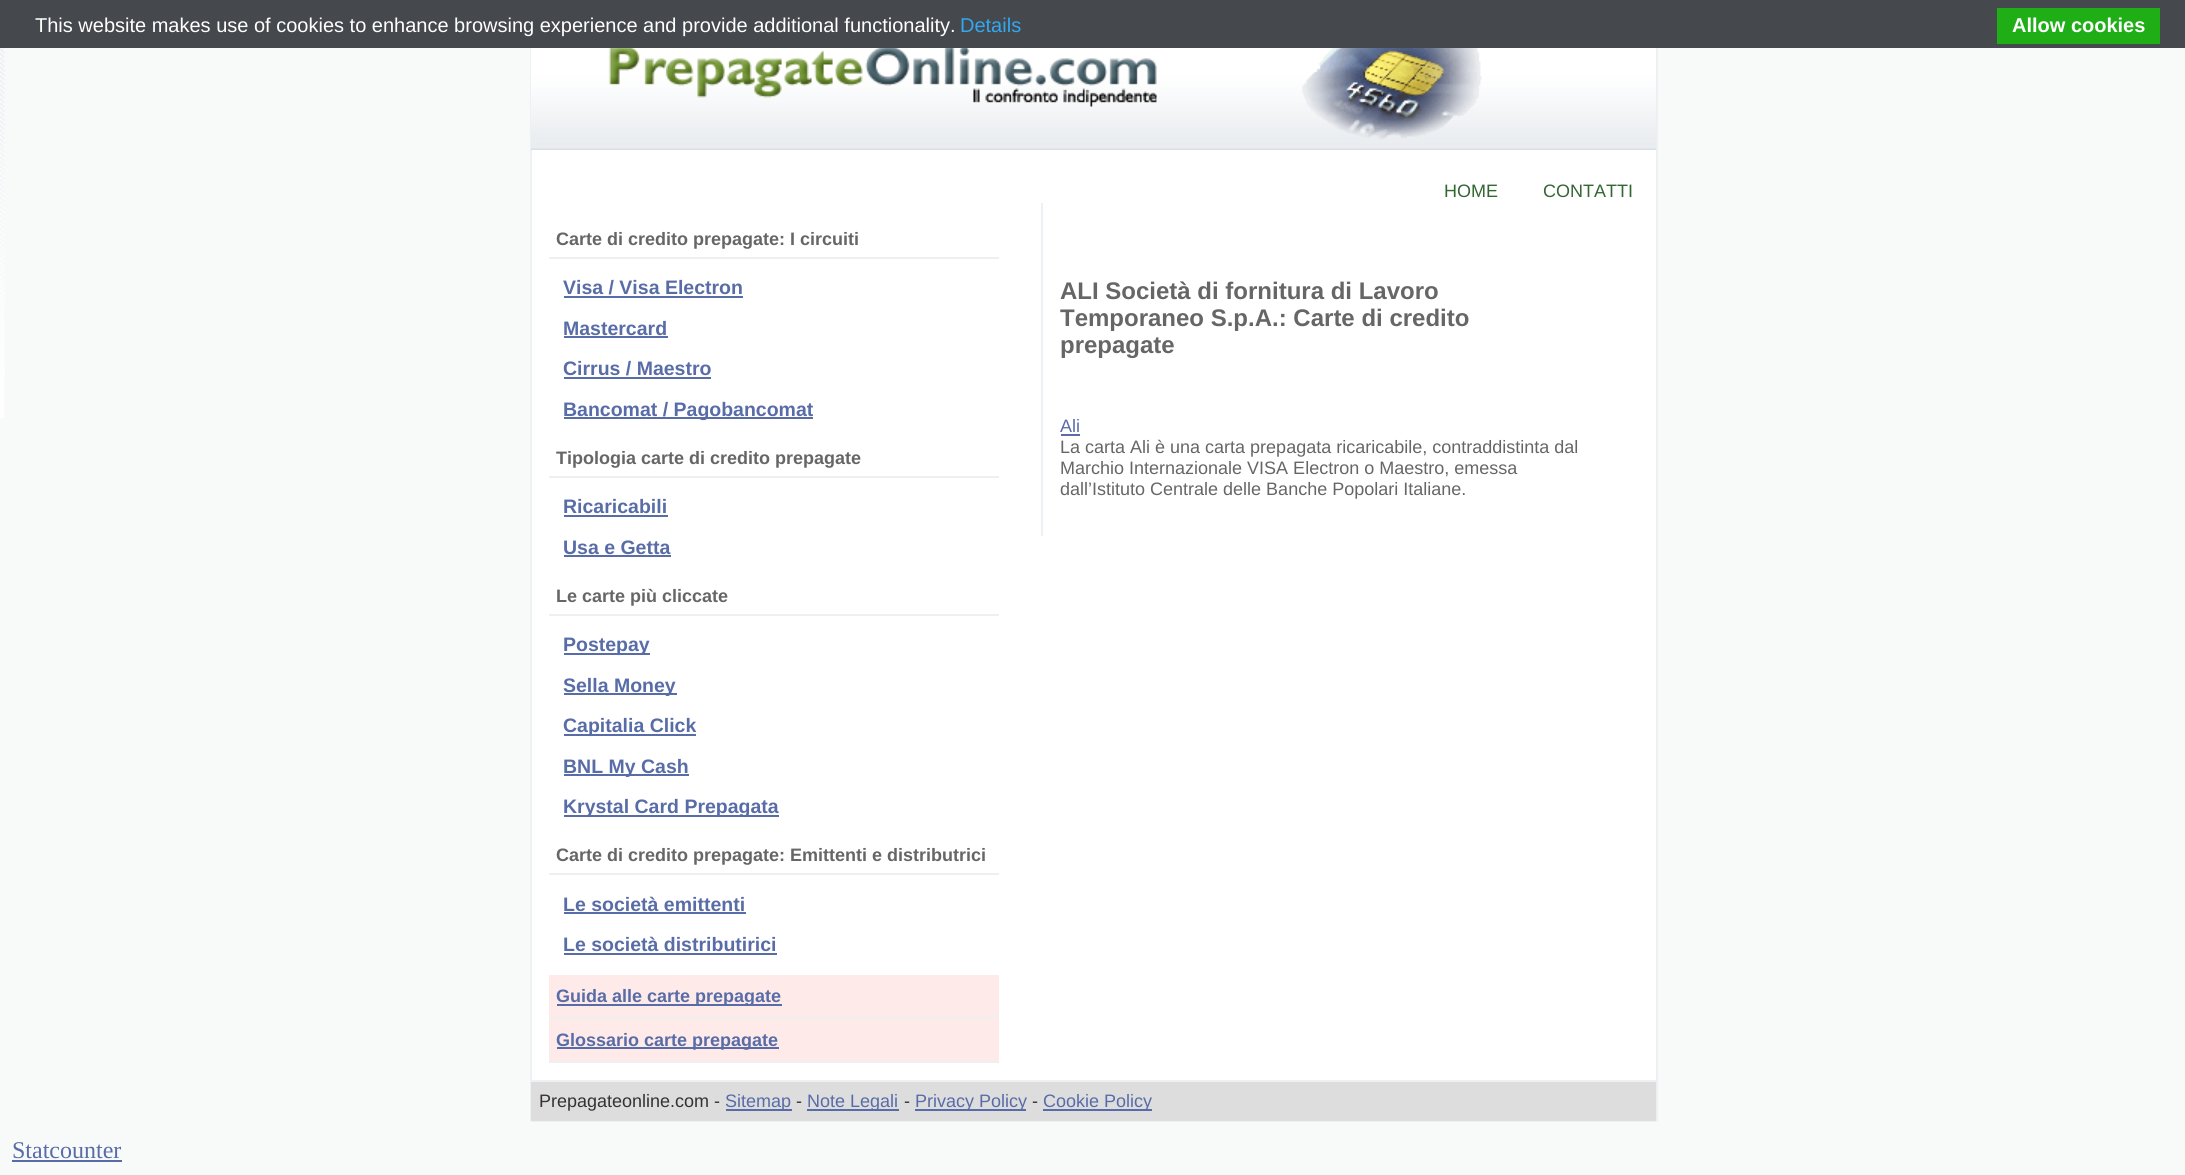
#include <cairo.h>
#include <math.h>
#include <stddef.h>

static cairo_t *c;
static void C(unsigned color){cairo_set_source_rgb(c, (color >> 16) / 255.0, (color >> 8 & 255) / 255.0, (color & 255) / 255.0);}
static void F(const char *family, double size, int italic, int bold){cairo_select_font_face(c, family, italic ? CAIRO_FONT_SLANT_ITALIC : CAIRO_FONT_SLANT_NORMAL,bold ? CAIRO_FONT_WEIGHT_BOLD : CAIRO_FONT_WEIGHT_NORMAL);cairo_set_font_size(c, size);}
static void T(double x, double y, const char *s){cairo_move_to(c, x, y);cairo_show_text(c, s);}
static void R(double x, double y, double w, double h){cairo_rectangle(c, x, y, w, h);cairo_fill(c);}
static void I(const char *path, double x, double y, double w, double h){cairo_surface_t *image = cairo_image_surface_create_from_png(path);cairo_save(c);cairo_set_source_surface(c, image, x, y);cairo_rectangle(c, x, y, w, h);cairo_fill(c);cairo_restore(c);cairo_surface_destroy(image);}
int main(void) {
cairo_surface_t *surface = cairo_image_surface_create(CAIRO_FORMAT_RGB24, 2185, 1175);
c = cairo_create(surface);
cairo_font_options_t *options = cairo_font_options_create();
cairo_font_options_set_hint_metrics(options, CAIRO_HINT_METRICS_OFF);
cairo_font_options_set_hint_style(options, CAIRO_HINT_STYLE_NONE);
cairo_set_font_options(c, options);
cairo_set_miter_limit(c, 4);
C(0xf8fafa);
cairo_paint(c);
I("1.png",0,48,5,370);
C(0xffffff);
R(532,150,1124,930);
cairo_rectangle(c,531,-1,1126,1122);
C(0xeef1f4);
cairo_stroke(c);
C(0x45484d);
R(0,0,2185,48);
F("Liberation Sans",20,0,0);
C(0xffffff);
T(35,32,"This website makes use of cookies to enhance browsing experience and provide additional functionality.");
C(0x31a8f0);
T(960,32,"Details");
C(0x1fae16);
R(1997,8,163,36);
F("Liberation Sans",20,0,1);
C(0xffffff);
T(2012,32,"Allow cookies");
I("2.png",531,48,1125,102);
I("3.png",608,48,549,59);
I("4.png",1302,48,180,92);
F("Liberation Sans",18,0,0);
C(0x336633);
T(1444,197,"HOME");
T(1543,197,"CONTATTI");
C(0xefefef);
R(549,257,450,2);
F("Liberation Sans",18,0,1);
C(0x666666);
T(556,245,"Carte di credito prepagate: I circuiti");
F("Liberation Sans",19.5,0,1);
C(0x586ca7);
T(563,294,"Visa / Visa Electron");
R(564,296,179,2);
T(563,335,"Mastercard");
R(564,336,104,2);
T(563,375,"Cirrus / Maestro");
R(564,377,147,2);
R(564,417,249,2);
T(563,416,"Bancomat / Pagobancomat");
C(0xefefef);
R(549,476,450,2);
F("Liberation Sans",18,0,1);
C(0x666666);
T(556,464,"Tipologia carte di credito prepagate");
F("Liberation Sans",19.5,0,1);
C(0x586ca7);
T(563,513,"Ricaricabili");
R(564,515,104,2);
T(563,554,"Usa e Getta");
R(564,555,107,2);
C(0xefefef);
R(549,614,450,2);
F("Liberation Sans",18,0,1);
C(0x666666);
T(556,602,"Le carte più cliccate");
C(0x586ca7);
R(564,653,86,2);
F("Liberation Sans",19.5,0,1);
T(563,651,"Postepay");
R(564,693,113,2);
T(563,692,"Sella Money");
R(564,734,132,2);
T(563,732,"Capitalia Click");
R(564,774,125,2);
T(563,773,"BNL My Cash");
R(564,815,215,2);
T(563,813,"Krystal Card Prepagata");
C(0xefefef);
R(549,873,450,2);
F("Liberation Sans",18,0,1);
C(0x666666);
T(556,861,"Carte di credito prepagate: Emittenti e distributrici");
F("Liberation Sans",19.5,0,1);
C(0x586ca7);
T(563,911,"Le società emittenti");
R(564,912,182,2);
T(563,951,"Le società distributirici");
R(564,953,213,2);
C(0xffeaea);
R(549,975,450,42);
C(0xefefef);
R(549,1017,450,2);
C(0x586ca7);
R(557,1004,225,2);
F("Liberation Sans",18,0,1);
T(556,1002,"Guida alle carte prepagate");
C(0xffeaea);
R(549,1019,450,42);
C(0xefefef);
R(549,1061,450,2);
C(0x586ca7);
R(557,1047,222,2);
T(556,1046,"Glossario carte prepagate");
C(0xeef1f4);
R(1041,203,2,333);
F("Liberation Sans",24,0,1);
C(0x666666);
T(1060,299,"ALI Società di fornitura di Lavoro");
T(1060,326,"Temporaneo S.p.A.: Carte di credito");
T(1060,353,"prepagate");
F("Liberation Sans",18,0,0);
C(0x586ca7);
T(1060,432,"Ali");
R(1061,434,19,2);
C(0x666666);
T(1060,453,"La carta Ali è una carta prepagata ricaricabile, contraddistinta dal");
T(1060,474,"Marchio Internazionale VISA Electron o Maestro, emessa");
T(1060,495,"dall’Istituto Centrale delle Banche Popolari Italiane.");
C(0xdddddd);
R(531,1082,1125,39);
C(0xeef1f4);
R(531,1080,1125,2);
C(0x333333);
T(539,1107,"Prepagateonline.com -");
C(0x586ca7);
R(726,1109,66,2);
T(725,1107,"Sitemap");
C(0x333333);
T(796,1107,"-");
C(0x586ca7);
R(807,1109,92,2);
T(807,1107,"Note Legali");
C(0x333333);
T(904,1107,"-");
C(0x586ca7);
R(915,1109,111,2);
T(915,1107,"Privacy Policy");
C(0x333333);
T(1032,1107,"-");
C(0x586ca7);
R(1043,1109,109,2);
T(1043,1107,"Cookie Policy");
F("Liberation Serif",24,0,0);
T(12,1158,"Statcounter");
R(12,1160,110,2);
cairo_surface_write_to_png(surface, "o.png");
cairo_font_options_destroy(options);
cairo_destroy(c);
cairo_surface_destroy(surface);
return 0;
}
